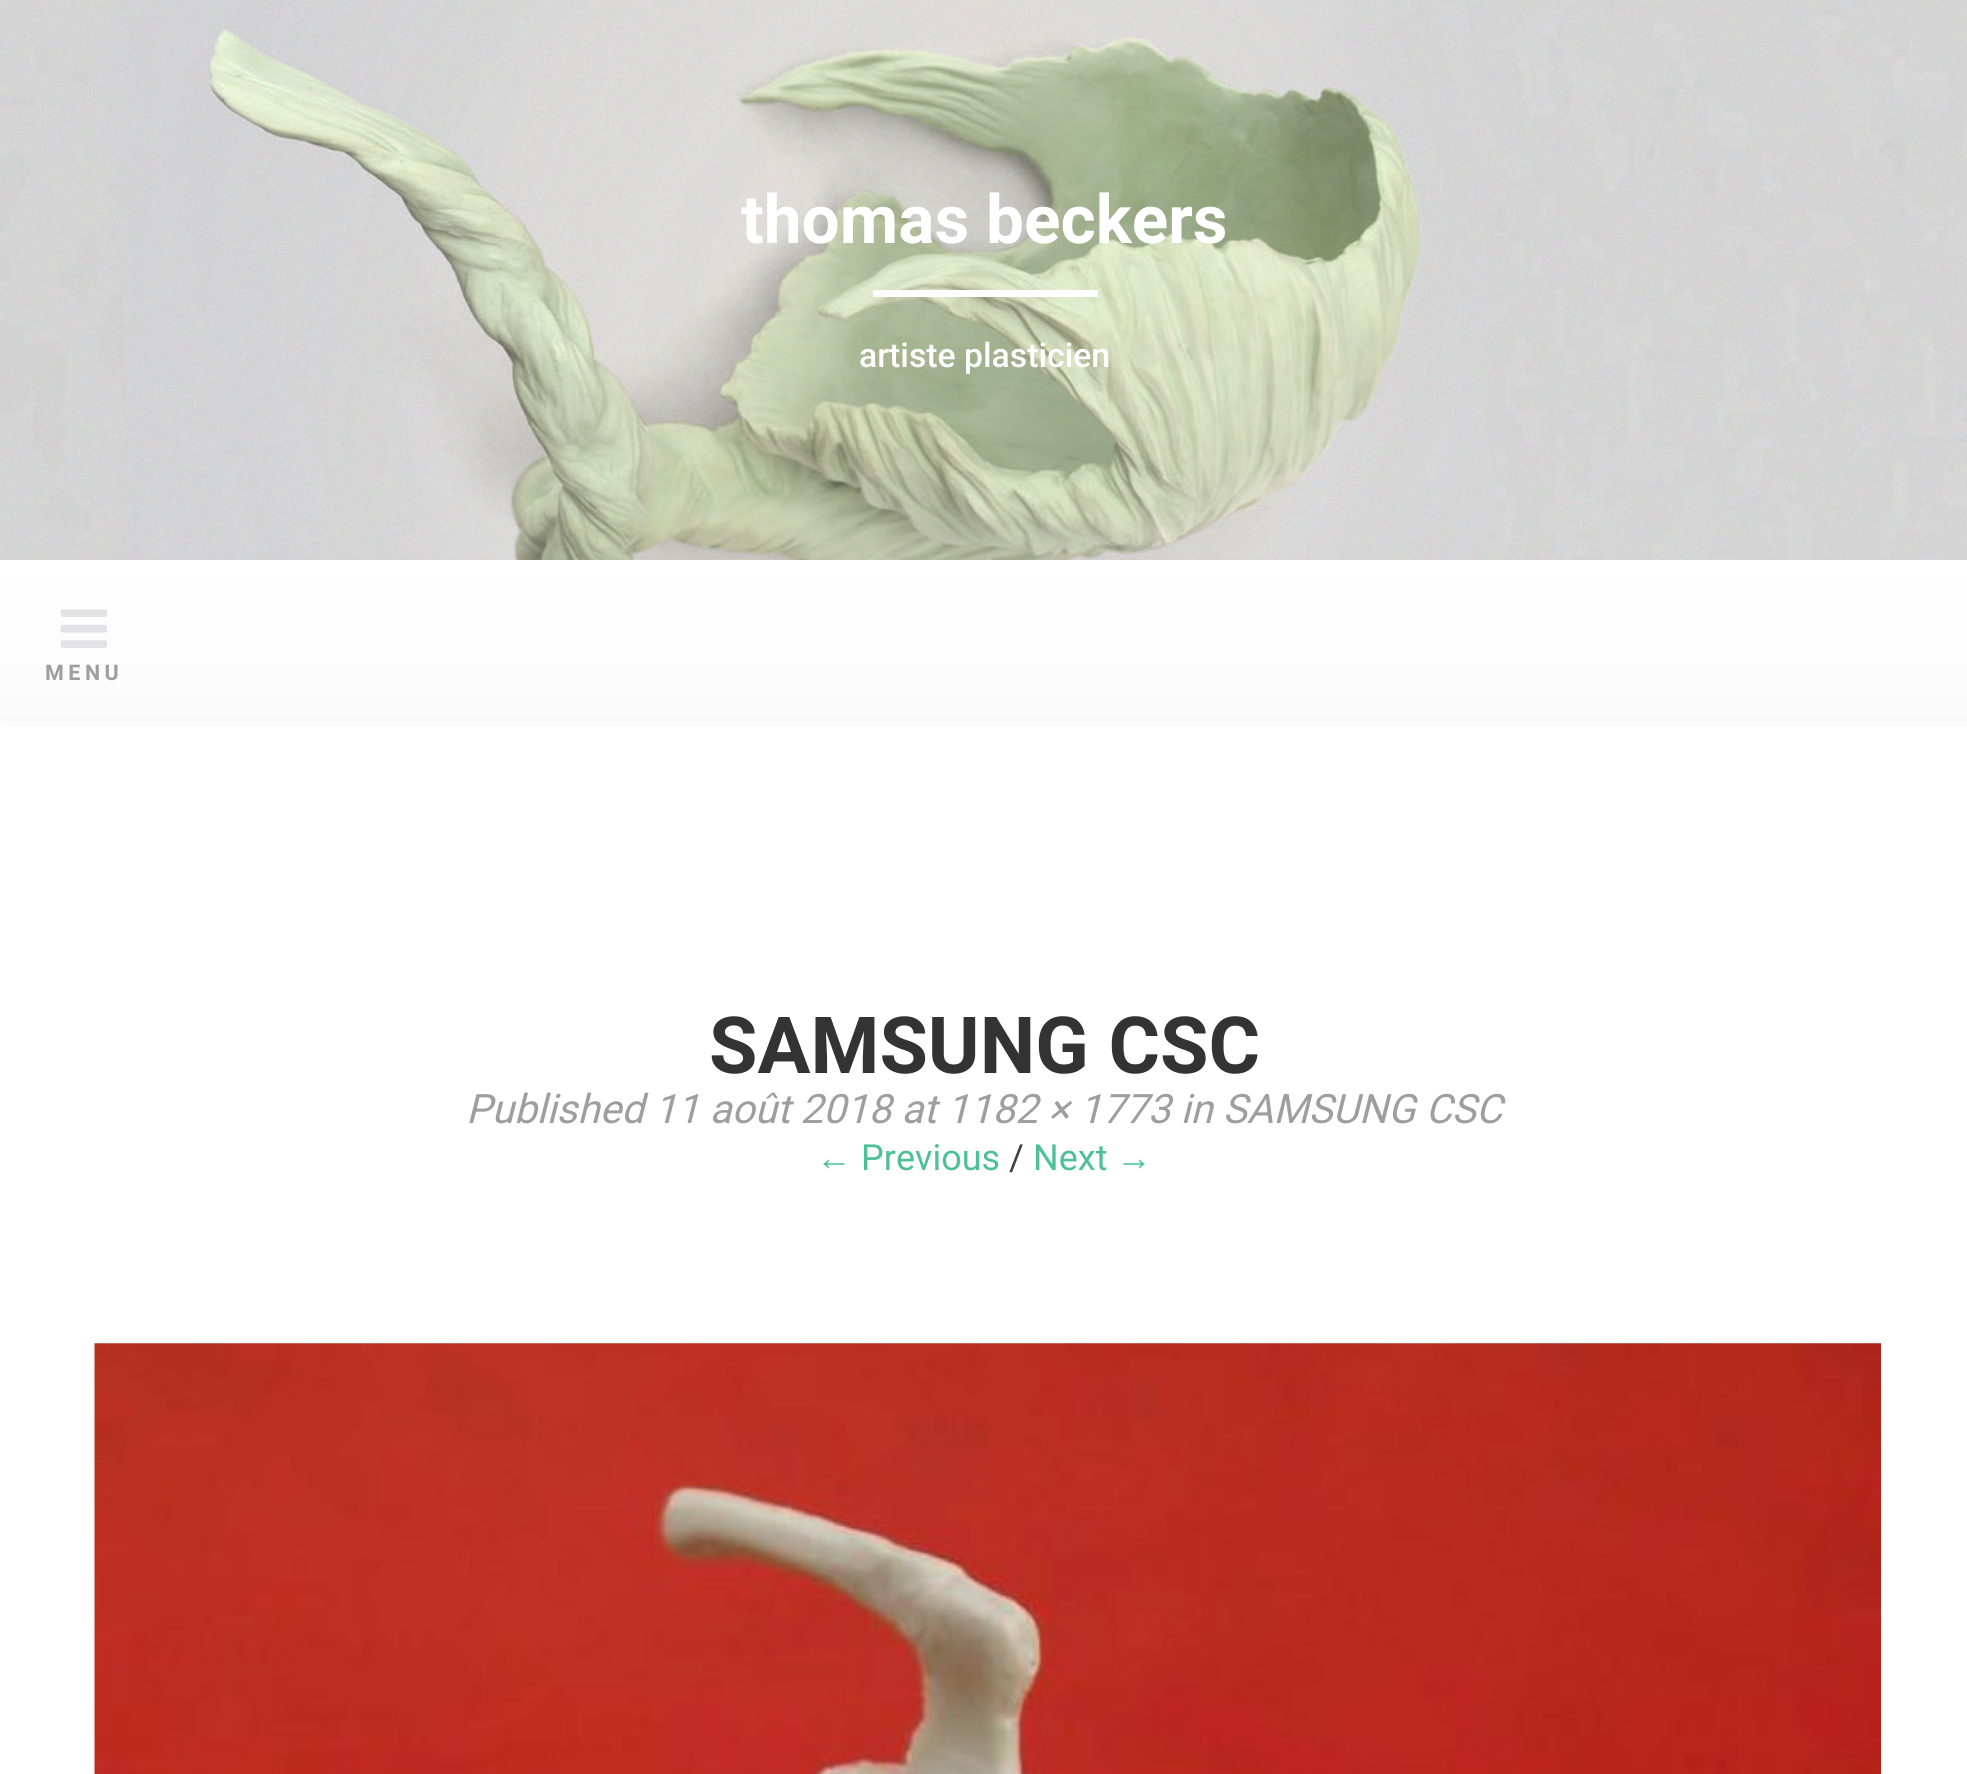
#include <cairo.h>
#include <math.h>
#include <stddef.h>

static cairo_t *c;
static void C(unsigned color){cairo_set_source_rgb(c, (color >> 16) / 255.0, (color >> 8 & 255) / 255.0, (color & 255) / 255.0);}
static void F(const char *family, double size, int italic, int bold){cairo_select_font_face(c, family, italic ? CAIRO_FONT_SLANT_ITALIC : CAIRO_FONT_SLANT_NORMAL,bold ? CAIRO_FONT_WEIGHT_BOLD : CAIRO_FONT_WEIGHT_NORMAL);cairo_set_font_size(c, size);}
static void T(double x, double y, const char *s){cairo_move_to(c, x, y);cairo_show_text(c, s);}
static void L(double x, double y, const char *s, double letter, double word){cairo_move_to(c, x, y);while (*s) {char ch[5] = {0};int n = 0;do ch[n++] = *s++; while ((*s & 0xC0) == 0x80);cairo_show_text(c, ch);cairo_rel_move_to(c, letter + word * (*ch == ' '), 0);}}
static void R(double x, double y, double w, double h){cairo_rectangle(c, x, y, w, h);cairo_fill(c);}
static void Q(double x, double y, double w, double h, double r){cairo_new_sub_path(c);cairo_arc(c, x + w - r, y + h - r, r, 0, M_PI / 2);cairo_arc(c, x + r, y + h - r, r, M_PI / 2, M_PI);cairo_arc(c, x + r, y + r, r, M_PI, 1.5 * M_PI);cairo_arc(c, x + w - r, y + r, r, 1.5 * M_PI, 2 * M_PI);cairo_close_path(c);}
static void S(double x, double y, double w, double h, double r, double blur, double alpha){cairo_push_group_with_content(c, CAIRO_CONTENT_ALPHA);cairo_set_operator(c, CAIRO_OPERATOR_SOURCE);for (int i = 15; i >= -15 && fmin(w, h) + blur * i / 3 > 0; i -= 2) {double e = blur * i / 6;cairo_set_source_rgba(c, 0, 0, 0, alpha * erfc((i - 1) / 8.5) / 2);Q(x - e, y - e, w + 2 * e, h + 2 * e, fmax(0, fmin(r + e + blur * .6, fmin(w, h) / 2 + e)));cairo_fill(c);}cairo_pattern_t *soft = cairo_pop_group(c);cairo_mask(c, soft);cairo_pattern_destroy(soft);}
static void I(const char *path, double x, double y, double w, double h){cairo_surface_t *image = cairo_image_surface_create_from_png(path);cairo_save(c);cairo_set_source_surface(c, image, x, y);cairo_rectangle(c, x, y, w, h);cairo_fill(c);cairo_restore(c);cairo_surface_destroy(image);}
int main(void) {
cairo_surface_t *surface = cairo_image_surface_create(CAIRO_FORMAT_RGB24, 1967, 1774);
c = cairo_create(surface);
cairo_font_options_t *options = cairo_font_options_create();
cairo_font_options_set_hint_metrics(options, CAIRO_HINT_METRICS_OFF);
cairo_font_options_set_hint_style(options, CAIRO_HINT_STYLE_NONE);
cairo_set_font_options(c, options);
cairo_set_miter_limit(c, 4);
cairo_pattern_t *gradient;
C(0xffffff);
cairo_paint(c);
I("1.png",0,0,1967,560);
F("Roboto",67.5,0,1);
C(0xffffff);
T(741,243,"thomas beckers");
R(873,290,225,7);
F("Roboto Medium",33.75,0,0);
T(859,367,"artiste plasticien");
C(0xbebebe);
S(0,563,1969,157,0,3.5,.2);
gradient = cairo_pattern_create_linear(984,560,984,718);
cairo_pattern_add_color_stop_rgba(gradient,0,1,1,1,1);
cairo_pattern_add_color_stop_rgba(gradient,1,0.984,0.984,0.988,1);
cairo_set_source(c,gradient);
cairo_pattern_destroy(gradient);
R(0,560,1967,158);
I("2.png",60,609,47,39);
F("Roboto",21.5,0,1);
C(0x9e9e9e);
L(45,680,"MENU",4.5,0);
F("Roboto",78.75,0,1);
C(0x333333);
T(709,1073,"SAMSUNG CSC");
F("Roboto",40.5,1,0);
C(0x9e9e9e);
T(466,1123,"Published 11 août 2018 at 1182 × 1773 in SAMSUNG CSC");
F("Liberation Sans",36,0,0);
C(0x4dbf99);
T(816,1170,"←");
F("Roboto",36,0,0);
T(861,1170,"Previous");
C(0x404040);
T(1009,1170,"/");
C(0x4dbf99);
T(1033,1170,"Next");
F("Liberation Sans",36,0,0);
T(1116,1170,"→");
I("3.png",94,1343,1787,431);
cairo_surface_write_to_png(surface, "o.png");
cairo_font_options_destroy(options);
cairo_destroy(c);
cairo_surface_destroy(surface);
return 0;
}
